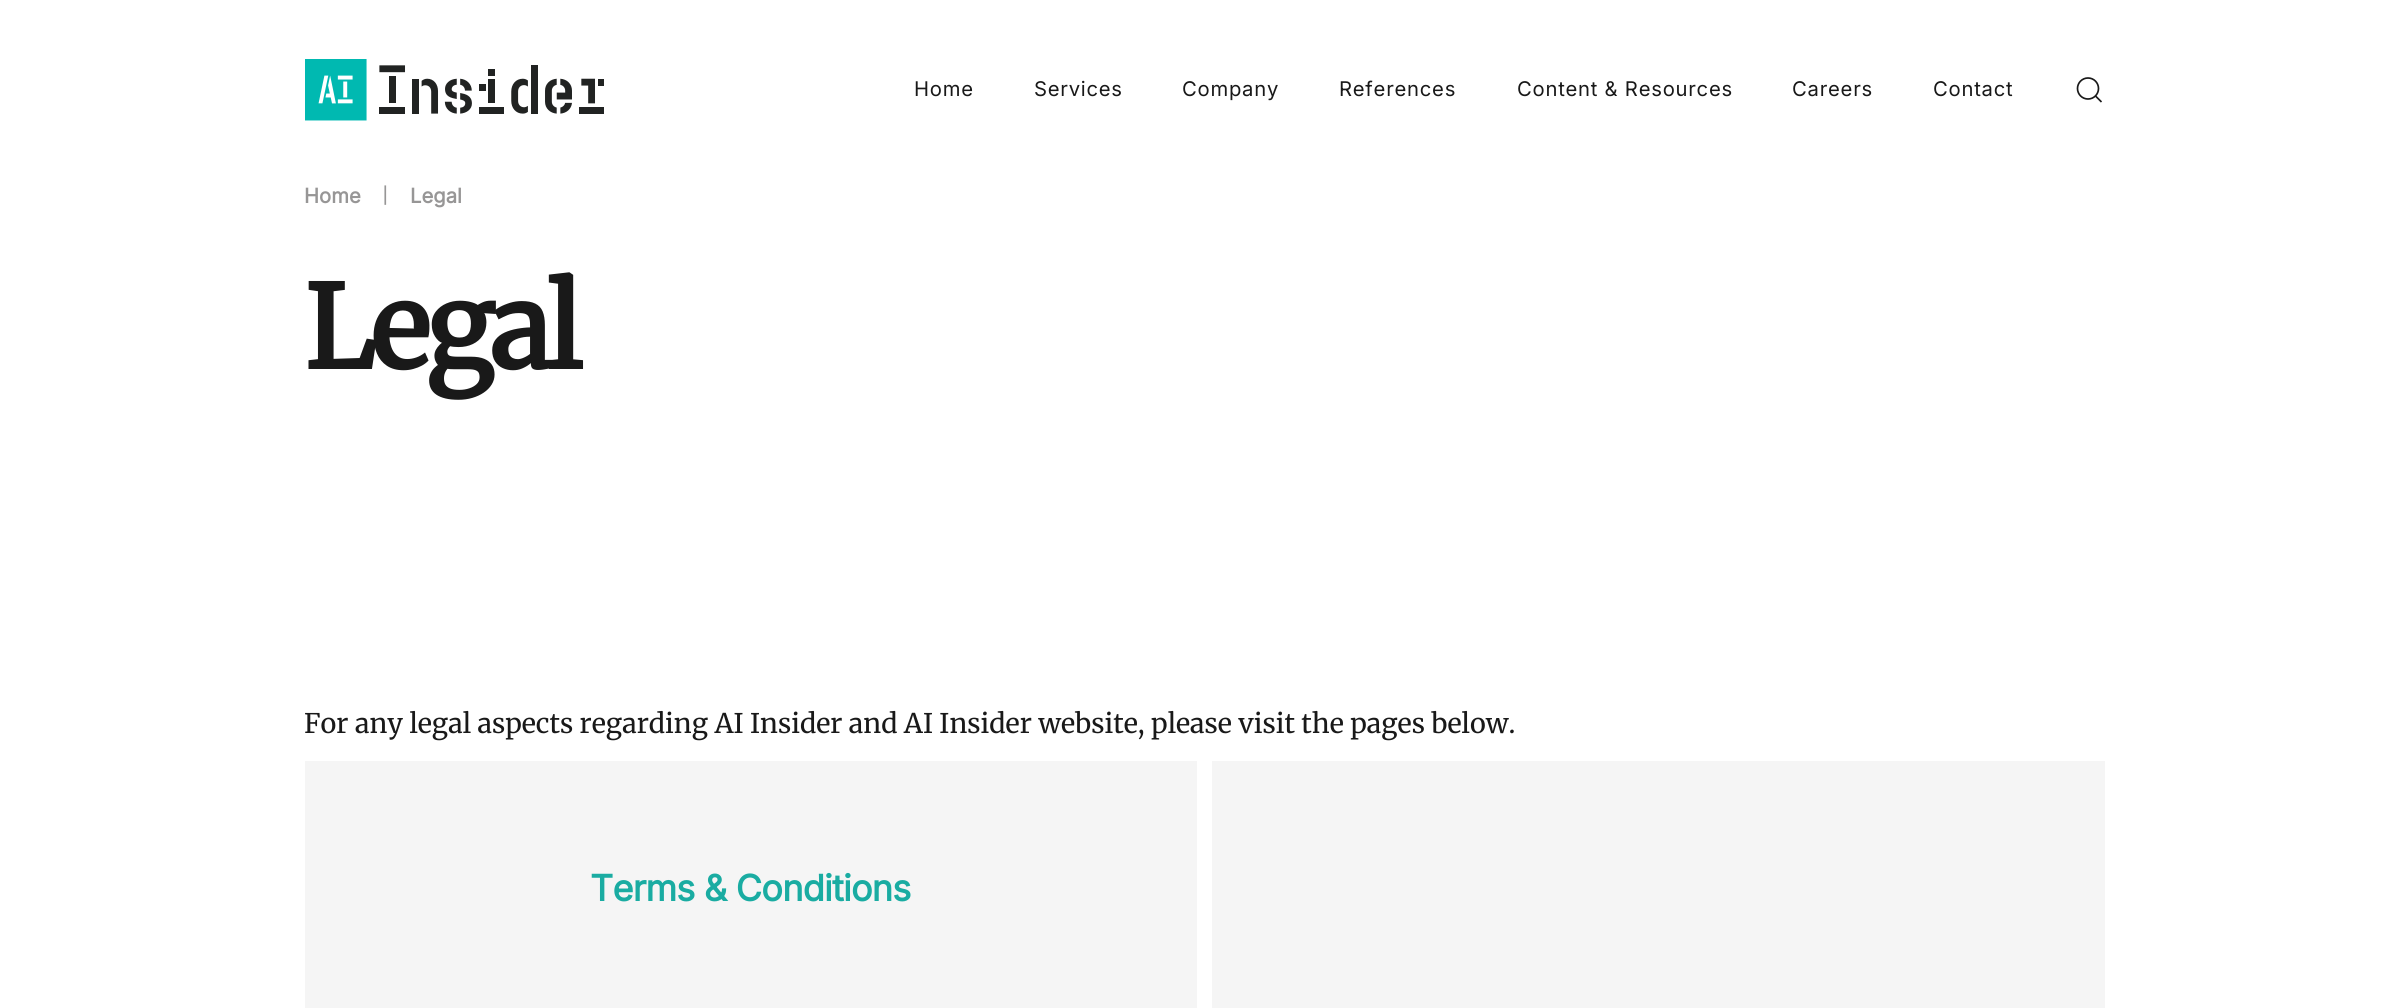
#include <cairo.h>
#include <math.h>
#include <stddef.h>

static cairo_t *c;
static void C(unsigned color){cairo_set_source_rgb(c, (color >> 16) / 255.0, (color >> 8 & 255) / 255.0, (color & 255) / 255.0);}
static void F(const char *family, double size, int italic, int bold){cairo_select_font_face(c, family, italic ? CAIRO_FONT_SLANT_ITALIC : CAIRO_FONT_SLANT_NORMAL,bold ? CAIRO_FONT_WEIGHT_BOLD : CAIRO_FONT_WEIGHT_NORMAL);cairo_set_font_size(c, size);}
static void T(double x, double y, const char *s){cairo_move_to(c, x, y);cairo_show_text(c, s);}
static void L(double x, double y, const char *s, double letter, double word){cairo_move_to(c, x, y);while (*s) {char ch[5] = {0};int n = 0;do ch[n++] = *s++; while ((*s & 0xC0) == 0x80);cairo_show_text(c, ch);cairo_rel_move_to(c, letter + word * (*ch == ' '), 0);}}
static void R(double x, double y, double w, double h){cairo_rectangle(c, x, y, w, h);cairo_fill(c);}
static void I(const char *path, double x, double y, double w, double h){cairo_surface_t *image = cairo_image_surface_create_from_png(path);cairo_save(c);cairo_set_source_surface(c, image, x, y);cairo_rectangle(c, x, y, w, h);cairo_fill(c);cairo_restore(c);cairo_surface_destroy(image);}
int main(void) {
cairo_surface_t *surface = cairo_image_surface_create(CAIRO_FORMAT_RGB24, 2407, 1008);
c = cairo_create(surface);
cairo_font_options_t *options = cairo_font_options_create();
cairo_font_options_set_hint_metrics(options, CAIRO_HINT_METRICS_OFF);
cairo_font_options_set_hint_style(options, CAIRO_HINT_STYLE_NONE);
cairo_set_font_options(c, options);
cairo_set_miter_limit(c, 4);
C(0xffffff);
cairo_paint(c);
I("1.png",305,59,299,62);
F("Inter",20.25,0,0);
C(0x191919);
L(914,96,"Home",.75,0);
L(1034,96,"Services",.75,0);
L(1182,96,"Company",.75,0);
L(1339,96,"References",.75,0);
L(1517,96,"Content & Resources",.75,0);
L(1792,96,"Careers",.75,0);
L(1933,96,"Contact",.75,0);
cairo_new_path(c);
cairo_arc(c,2088,88.5,10.5,0,2 * M_PI);
cairo_set_line_width(c,1.7);
cairo_stroke(c);
cairo_new_path(c);
cairo_move_to(c,2095.5,96);
cairo_line_to(c,2101.5,102);
cairo_close_path(c);
cairo_stroke(c);
F("Inter",20.25,0,1);
C(0x979696);
T(304,203,"Home");
F("Merriweather Light",20.25,0,0);
T(381,203,"|");
F("Inter",20.25,0,1);
T(410,203,"Legal");
F("Merriweather",114,0,1);
C(0x191919);
L(304,369,"Legal",-4.5,0);
F("Merriweather Light",27,0,0);
T(304,733,"For any legal aspects regarding AI Insider and AI Insider website, please visit the pages below.");
C(0xf5f5f5);
R(305,761,892,247);
F("Inter",36,0,1);
C(0x1aaca2);
L(590,901,"Terms & Conditions",-.75,0);
C(0xf5f5f5);
R(1212,761,893,247);
cairo_surface_write_to_png(surface, "o.png");
cairo_font_options_destroy(options);
cairo_destroy(c);
cairo_surface_destroy(surface);
return 0;
}
